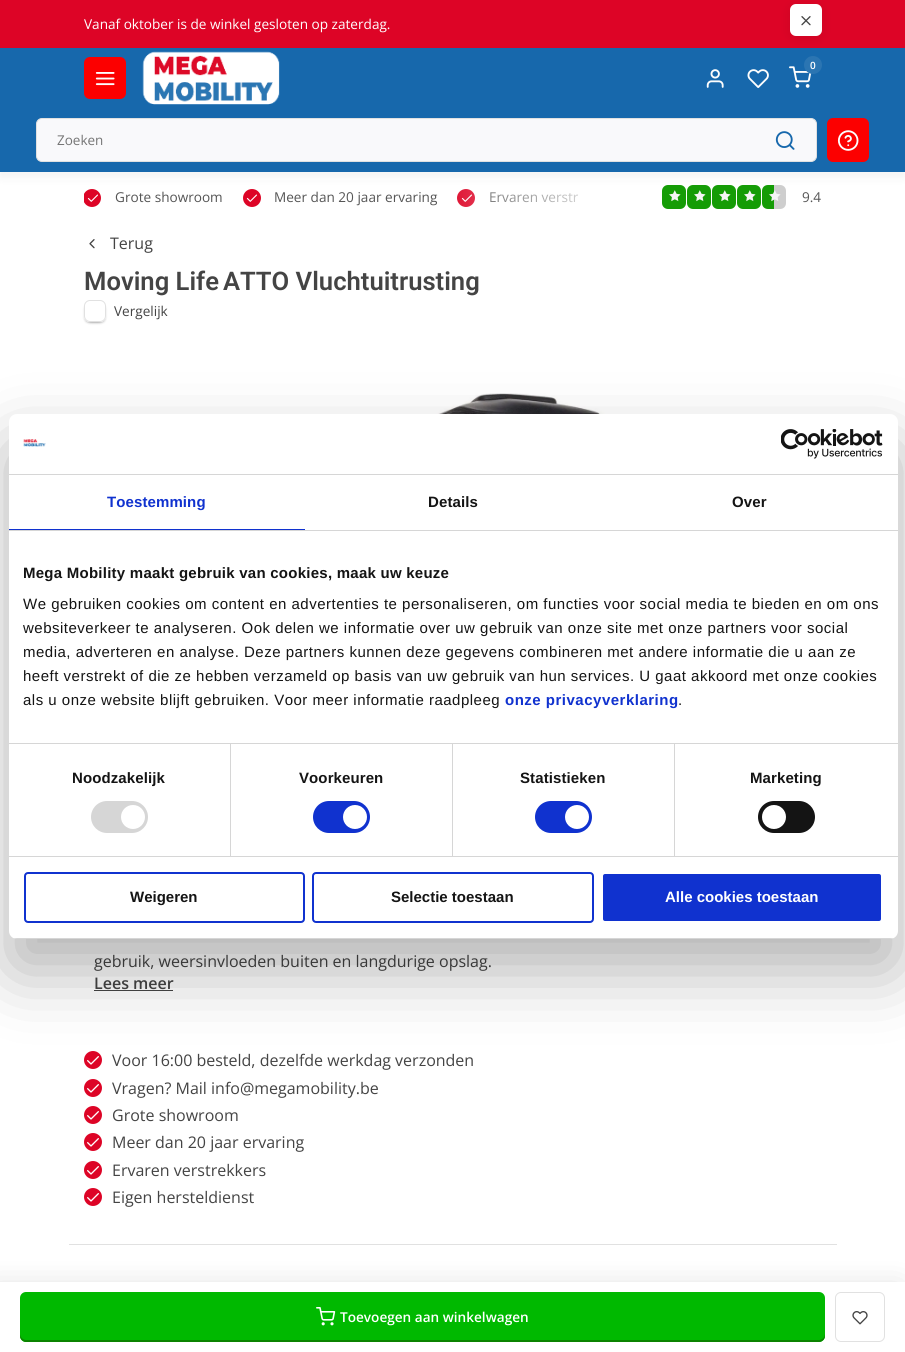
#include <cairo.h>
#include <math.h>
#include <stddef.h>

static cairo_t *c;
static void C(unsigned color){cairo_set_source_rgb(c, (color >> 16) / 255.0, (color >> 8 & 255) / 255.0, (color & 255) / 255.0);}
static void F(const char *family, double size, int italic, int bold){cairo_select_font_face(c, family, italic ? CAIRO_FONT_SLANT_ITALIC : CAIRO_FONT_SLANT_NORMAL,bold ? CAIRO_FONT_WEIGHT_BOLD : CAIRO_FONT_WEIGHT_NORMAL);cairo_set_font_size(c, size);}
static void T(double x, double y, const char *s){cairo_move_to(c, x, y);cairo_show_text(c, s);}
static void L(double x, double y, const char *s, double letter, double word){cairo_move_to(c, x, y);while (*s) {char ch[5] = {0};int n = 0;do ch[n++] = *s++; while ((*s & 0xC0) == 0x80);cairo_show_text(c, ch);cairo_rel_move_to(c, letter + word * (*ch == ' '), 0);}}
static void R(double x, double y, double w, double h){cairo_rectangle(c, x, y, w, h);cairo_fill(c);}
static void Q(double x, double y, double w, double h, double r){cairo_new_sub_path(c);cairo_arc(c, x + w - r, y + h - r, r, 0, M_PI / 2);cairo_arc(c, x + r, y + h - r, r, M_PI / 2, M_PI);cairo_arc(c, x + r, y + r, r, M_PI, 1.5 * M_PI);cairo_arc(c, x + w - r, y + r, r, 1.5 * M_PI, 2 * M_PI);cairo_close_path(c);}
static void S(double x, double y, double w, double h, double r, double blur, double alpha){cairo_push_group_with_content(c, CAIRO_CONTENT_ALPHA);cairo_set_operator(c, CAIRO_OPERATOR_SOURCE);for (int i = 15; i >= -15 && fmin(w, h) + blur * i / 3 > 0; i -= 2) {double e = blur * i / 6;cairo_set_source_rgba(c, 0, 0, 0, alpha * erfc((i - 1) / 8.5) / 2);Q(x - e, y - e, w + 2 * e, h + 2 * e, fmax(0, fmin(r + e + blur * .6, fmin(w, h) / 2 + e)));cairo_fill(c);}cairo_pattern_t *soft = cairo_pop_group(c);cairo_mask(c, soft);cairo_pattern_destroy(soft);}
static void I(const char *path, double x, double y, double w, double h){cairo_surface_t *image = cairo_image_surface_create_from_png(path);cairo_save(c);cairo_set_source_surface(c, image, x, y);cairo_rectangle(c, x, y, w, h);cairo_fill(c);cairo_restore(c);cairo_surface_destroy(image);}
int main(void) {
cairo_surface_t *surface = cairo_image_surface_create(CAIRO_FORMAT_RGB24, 905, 1352);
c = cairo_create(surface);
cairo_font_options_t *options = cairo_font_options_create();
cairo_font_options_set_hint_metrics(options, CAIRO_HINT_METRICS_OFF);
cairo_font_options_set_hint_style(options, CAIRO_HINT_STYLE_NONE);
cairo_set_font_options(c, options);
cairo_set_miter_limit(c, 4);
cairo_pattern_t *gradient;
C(0xffffff);
cairo_paint(c);
C(0xdd0426);
R(0,0,905,48);
F("Open Sans",13.6,0,0);
C(0xffffff);
T(84,29,"Vanaf oktober is de winkel gesloten op zaterdag.");
C(0x000000);
S(790,6,32,32,6,6,.08);
C(0xffffff);
Q(790,4,32,32,6);
cairo_fill(c);
I("1.png",801,16,10,10);
cairo_save(c);
cairo_rectangle(c,84,172,548,50);
cairo_clip(c);
C(0xdd0426);
cairo_arc(c,92,198,9,0,2 * M_PI);
cairo_fill(c);
cairo_restore(c);
C(0xdd0426);
cairo_arc(c,252,198,9,0,2 * M_PI);
cairo_fill(c);
cairo_arc(c,466,198,9,0,2 * M_PI);
cairo_fill(c);
I("9.png",461,194,11,8);
C(0x555555);
T(489,202,"Ervaren verstr");
gradient = cairo_pattern_create_linear(443,197,632,197);
cairo_pattern_add_color_stop_rgba(gradient,0,1,1,1,0);
cairo_pattern_add_color_stop_rgba(gradient,1,1,1,1,1);
cairo_set_source(c,gradient);
cairo_pattern_destroy(gradient);
R(457,189,122,18);
C(0x159c06);
Q(662,185,24,24,6);
cairo_fill(c);
I("10.png",669,190,12,12);
Q(687,185,24,24,6);
cairo_fill(c);
I("10.png",694,190,12,12);
Q(712,185,24,24,6);
cairo_fill(c);
I("10.png",719,190,12,12);
Q(737,185,24,24,6);
cairo_fill(c);
I("10.png",744,190,12,12);
cairo_new_path(c);
cairo_move_to(c,768,185);
cairo_line_to(c,774,185);
cairo_line_to(c,774,209);
cairo_line_to(c,768,209);
cairo_curve_to(c,764.5,209,762,206.5,762,203);
cairo_line_to(c,762,191);
cairo_curve_to(c,762,187.5,764.5,185,768,185);
cairo_close_path(c);
cairo_fill(c);
C(0xcecece);
cairo_new_path(c);
cairo_move_to(c,774,185);
cairo_line_to(c,780,185);
cairo_curve_to(c,783.5,185,786,187.5,786,191);
cairo_line_to(c,786,203);
cairo_curve_to(c,786,206.5,783.5,209,780,209);
cairo_line_to(c,774,209);
cairo_close_path(c);
cairo_fill(c);
I("11.png",769,190,12,12);
C(0x000000);
S(0,53,905,124,0,5,.05);
C(0x1768ac);
R(0,48,905,124);
C(0xfc0000);
Q(84,57,42,42,6);
cairo_fill(c);
I("2.png",95,72,20,14);
I("3.png",142,51,138,54);
I("4.png",789,66,23,22);
C(0x2b75b2);
cairo_arc(c,813,65,9,0,2 * M_PI);
cairo_fill(c);
F("Open Sans SemiBold",10,0,0);
C(0xffffff);
T(810,69,"0");
I("5.png",706,69,18,19);
I("6.png",747,69,22,19);
C(0xf9f9fb);
Q(36.5,118.5,780,43,5.5);
cairo_fill_preserve(c);
C(0xe1e1e1);
cairo_set_line_width(c,1);
cairo_stroke(c);
F("Open Sans",13.5,0,0);
C(0x757575);
T(57,145,"Zoeken");
I("7.png",775,131,20,19);
C(0xfc0000);
Q(827,118,42,44,6);
cairo_fill(c);
I("8.png",837,130,22,21);
I("9.png",87,194,11,8);
F("Open Sans",13.6,0,0);
C(0x555555);
T(115,202,"Grote showroom");
I("9.png",246,194,11,8);
T(274,202,"Meer dan 20 jaar ervaring");
T(802,202,"9.4");
C(0xe1e1e1);
R(69,1244,768,1);
I("12.png",89,239,6,10);
F("Open Sans",16,0,0);
C(0x444444);
T(110,249,"Terug");
F("Roboto SemiBold",25.6,0,0);
T(84,290,"Moving Life");
T(223,290,"ATTO Vluchtuitrusting");
cairo_save(c);
cairo_set_fill_rule(c,CAIRO_FILL_RULE_EVEN_ODD);
cairo_new_path(c);
cairo_move_to(c,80,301);
cairo_line_to(c,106,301);
cairo_line_to(c,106,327);
cairo_line_to(c,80,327);
cairo_close_path(c);
cairo_move_to(c,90,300);
cairo_line_to(c,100,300);
cairo_curve_to(c,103.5,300,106,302.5,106,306);
cairo_line_to(c,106,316);
cairo_curve_to(c,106,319.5,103.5,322,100,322);
cairo_line_to(c,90,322);
cairo_curve_to(c,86.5,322,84,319.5,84,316);
cairo_line_to(c,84,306);
cairo_curve_to(c,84,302.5,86.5,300,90,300);
cairo_close_path(c);
cairo_clip(c);
C(0x999999);
S(86,307,14,14,2,1.5,1);
cairo_restore(c);
cairo_save(c);
cairo_set_fill_rule(c,CAIRO_FILL_RULE_EVEN_ODD);
cairo_new_path(c);
cairo_move_to(c,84,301);
cairo_line_to(c,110,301);
cairo_line_to(c,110,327);
cairo_line_to(c,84,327);
cairo_close_path(c);
cairo_move_to(c,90,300);
cairo_line_to(c,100,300);
cairo_curve_to(c,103.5,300,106,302.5,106,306);
cairo_line_to(c,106,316);
cairo_curve_to(c,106,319.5,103.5,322,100,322);
cairo_line_to(c,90,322);
cairo_curve_to(c,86.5,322,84,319.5,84,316);
cairo_line_to(c,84,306);
cairo_curve_to(c,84,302.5,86.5,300,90,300);
cairo_close_path(c);
cairo_clip(c);
C(0x999999);
S(90,307,14,14,2,1.5,1);
cairo_restore(c);
cairo_save(c);
cairo_set_fill_rule(c,CAIRO_FILL_RULE_EVEN_ODD);
cairo_new_path(c);
cairo_move_to(c,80,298);
cairo_line_to(c,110,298);
cairo_line_to(c,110,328);
cairo_line_to(c,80,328);
cairo_close_path(c);
cairo_move_to(c,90,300);
cairo_line_to(c,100,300);
cairo_curve_to(c,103.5,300,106,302.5,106,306);
cairo_line_to(c,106,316);
cairo_curve_to(c,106,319.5,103.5,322,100,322);
cairo_line_to(c,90,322);
cairo_curve_to(c,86.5,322,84,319.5,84,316);
cairo_line_to(c,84,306);
cairo_curve_to(c,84,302.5,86.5,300,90,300);
cairo_close_path(c);
cairo_clip(c);
C(0x999999);
S(86,304,18,18,4,1.5,1);
cairo_restore(c);
Q(84.5,300.5,21,21,5.5);
C(0xe1e1e1);
cairo_stroke(c);
F("Open Sans",13.6,0,0);
C(0x444444);
T(114,316,"Vergelijk");
I("13.png",414,393,191,21);
F("Open Sans",16,0,0);
T(94,967,"gebruik, weersinvloeden buiten en langdurige opslag.");
F("Open Sans SemiBold",16,0,0);
T(94,989,"Lees meer");
R(94,990,79,1);
C(0x000000);
S(-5,1288,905,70,0,15,.15);
C(0xffffff);
R(0,1282,905,70);
C(0x00b900);
Q(20,1292,805,50,6);
cairo_fill(c);
C(0x0b8300);
cairo_new_path(c);
cairo_move_to(c,20,1334);
cairo_line_to(c,20,1336);
cairo_curve_to(c,20,1339,23,1342,26,1342);
cairo_line_to(c,819,1342);
cairo_curve_to(c,822,1342,825,1339,825,1336);
cairo_line_to(c,825,1334);
cairo_curve_to(c,825,1337,822,1340,819,1340);
cairo_line_to(c,26,1340);
cairo_curve_to(c,23,1340,20,1337,20,1334);
cairo_close_path(c);
cairo_fill(c);
I("14.png",316,1307,20,19);
F("Open Sans SemiBold",13.6,0,0);
C(0xffffff);
T(340,1322,"Toevoegen aan winkelwagen");
Q(835.5,1292.5,49,49,5.5);
C(0xe1e1e1);
cairo_stroke(c);
I("15.png",852,1311,16,14);
C(0xdd0426);
cairo_arc(c,93,1060,9,0,2 * M_PI);
cairo_fill(c);
I("16.png",87,1056,12,9);
F("Open Sans",16,0,0);
C(0x444444);
T(112,1066,"Voor 16:00 besteld, dezelfde werkdag verzonden");
C(0xdd0426);
cairo_new_path(c);
cairo_arc(c,93,1088,9,0,2 * M_PI);
cairo_fill(c);
I("16.png",87,1084,12,9);
C(0x444444);
T(112,1094,"Vragen? Mail info@megamobility.be");
C(0xdd0426);
cairo_new_path(c);
cairo_arc(c,93,1115,9,0,2 * M_PI);
cairo_fill(c);
I("16.png",87,1111,12,9);
C(0x444444);
T(112,1121,"Grote showroom");
C(0xdd0426);
cairo_new_path(c);
cairo_arc(c,93,1142,9,0,2 * M_PI);
cairo_fill(c);
I("16.png",87,1138,12,9);
C(0x444444);
T(112,1148,"Meer dan 20 jaar ervaring");
C(0xdd0426);
cairo_new_path(c);
cairo_arc(c,93,1170,9,0,2 * M_PI);
cairo_fill(c);
I("16.png",87,1166,12,9);
C(0x444444);
T(112,1176,"Ervaren verstrekkers");
C(0xdd0426);
cairo_new_path(c);
cairo_arc(c,93,1197,9,0,2 * M_PI);
cairo_fill(c);
I("16.png",87,1193,12,9);
C(0x444444);
T(112,1203,"Eigen hersteldienst");
C(0x000000);
S(9,446,889,525,8,34,.3);
C(0xffffff);
Q(9,414,889,525,8);
cairo_fill(c);
C(0xd6d6d6);
R(9,474,889,1);
I("17.png",23,439,23,8);
I("18.png",781,429,102,30);
R(9,530,889,1);
C(0x1032cf);
R(9,529,296,1);
F("Liberation Sans",15,0,1);
L(107,507,"Toestemming",.1,0);
C(0x141414);
L(428,507,"Details",.1,0);
L(732,507,"Over",.1,0);
C(0xd6d6d6);
R(9,743,889,1);
C(0x141414);
L(23,578,"Mega Mobility maakt gebruik van cookies, maak uw keuze",.25,0);
F("Liberation Sans",15,0,0);
L(23,609,"We gebruiken cookies om content en advertenties te personaliseren, om functies voor social media te bieden en om ons",.5,0);
L(23,633,"websiteverkeer te analyseren. Ook delen we informatie over uw gebruik van onze site met onze partners voor social",.5,0);
L(23,657,"media, adverteren en analyse. Deze partners kunnen deze gegevens combineren met andere informatie die u aan ze",.5,0);
L(23,681,"heeft verstrekt of die ze hebben verzameld op basis van uw gebruik van hun services. U gaat akkoord met onze cookies",.5,0);
L(23,705,"als u onze website blijft gebruiken. Voor meer informatie raadpleeg",.5,0);
F("Liberation Sans",15,0,1);
C(0x1032cf);
L(505,705,"onze privacyverklaring",.5,0);
F("Liberation Sans",15,0,0);
C(0x141414);
L(678,705,".",.5,0);
C(0xd6d6d6);
R(9,856,889,1);
R(230,744,1,112);
F("Liberation Sans",15,0,1);
C(0x141414);
L(72,783,"Noodzakelijk",.1,0);
C(0xd6d6d6);
Q(91,801,57,32,16);
cairo_fill(c);
C(0xffffff);
cairo_arc(c,133,817,12,0,2 * M_PI);
cairo_fill(c);
C(0xd6d6d6);
R(452,744,1,112);
C(0x141414);
L(299,783,"Voorkeuren",.1,0);
C(0x1032cf);
Q(313,801,57,32,16);
cairo_fill(c);
C(0xffffff);
cairo_arc(c,355,817,12,0,2 * M_PI);
cairo_fill(c);
C(0xd6d6d6);
R(674,744,1,112);
C(0x141414);
L(520,783,"Statistieken",.1,0);
C(0x1032cf);
Q(535,801,57,32,16);
cairo_fill(c);
C(0xffffff);
cairo_arc(c,577,817,12,0,2 * M_PI);
cairo_fill(c);
C(0x141414);
L(750,783,"Marketing",.1,0);
Q(758,801,57,32,16);
cairo_fill(c);
C(0xffffff);
cairo_arc(c,774,817,12,0,2 * M_PI);
cairo_fill(c);
cairo_save(c);
Q(9,414,889,525,8);
cairo_clip(c);
C(0xd6d6d6);
R(9,938,889,1);
cairo_restore(c);
Q(25,873,279,49,3);
C(0x1032cf);
cairo_set_line_width(c,2);
cairo_stroke(c);
C(0x141414);
T(130,902,"Weigeren");
Q(313,873,280,49,3);
C(0x1032cf);
cairo_stroke(c);
C(0x141414);
T(391,902,"Selectie toestaan");
C(0x1032cf);
Q(602,873,280,49,3);
cairo_fill_preserve(c);
C(0xffffff);
cairo_stroke(c);
T(665,902,"Alle cookies toestaan");
cairo_surface_write_to_png(surface, "o.png");
cairo_font_options_destroy(options);
cairo_destroy(c);
cairo_surface_destroy(surface);
return 0;
}
